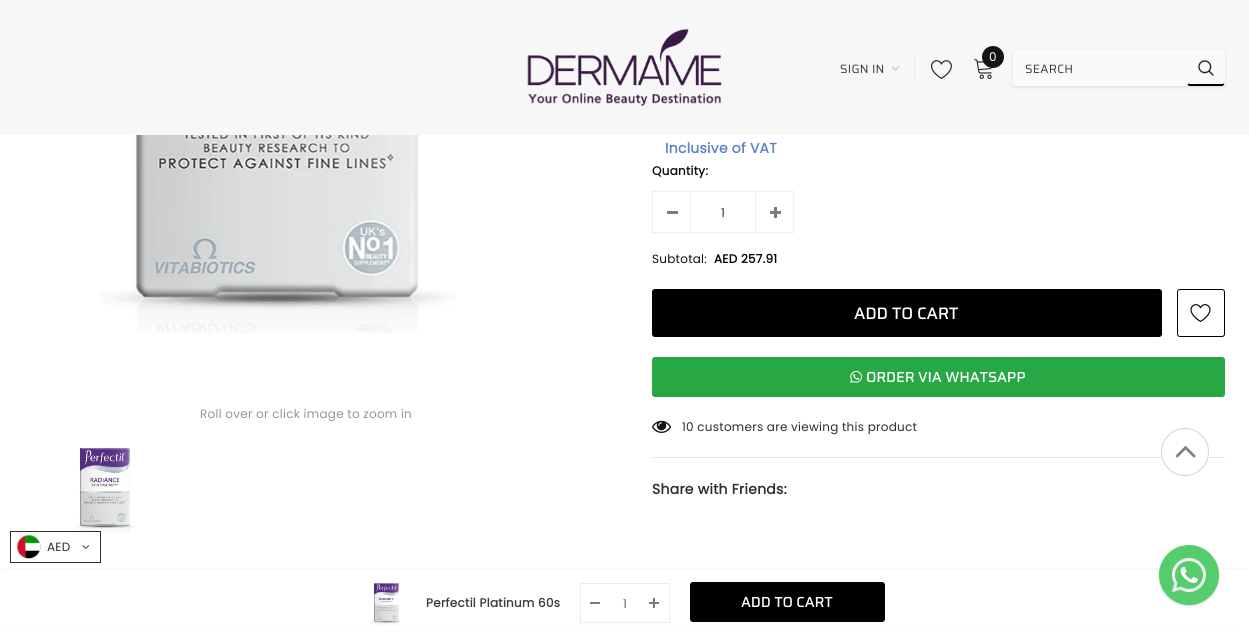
#include <cairo.h>
#include <math.h>
#include <stddef.h>

static cairo_t *c;
static void C(unsigned color){cairo_set_source_rgb(c, (color >> 16) / 255.0, (color >> 8 & 255) / 255.0, (color & 255) / 255.0);}
static void F(const char *family, double size, int italic, int bold){cairo_select_font_face(c, family, italic ? CAIRO_FONT_SLANT_ITALIC : CAIRO_FONT_SLANT_NORMAL,bold ? CAIRO_FONT_WEIGHT_BOLD : CAIRO_FONT_WEIGHT_NORMAL);cairo_set_font_size(c, size);}
static void T(double x, double y, const char *s){cairo_move_to(c, x, y);cairo_show_text(c, s);}
static void L(double x, double y, const char *s, double letter, double word){cairo_move_to(c, x, y);while (*s) {char ch[5] = {0};int n = 0;do ch[n++] = *s++; while ((*s & 0xC0) == 0x80);cairo_show_text(c, ch);cairo_rel_move_to(c, letter + word * (*ch == ' '), 0);}}
static void R(double x, double y, double w, double h){cairo_rectangle(c, x, y, w, h);cairo_fill(c);}
static void Q(double x, double y, double w, double h, double r){cairo_new_sub_path(c);cairo_arc(c, x + w - r, y + h - r, r, 0, M_PI / 2);cairo_arc(c, x + r, y + h - r, r, M_PI / 2, M_PI);cairo_arc(c, x + r, y + r, r, M_PI, 1.5 * M_PI);cairo_arc(c, x + w - r, y + r, r, 1.5 * M_PI, 2 * M_PI);cairo_close_path(c);}
static void S(double x, double y, double w, double h, double r, double blur, double alpha){cairo_push_group_with_content(c, CAIRO_CONTENT_ALPHA);cairo_set_operator(c, CAIRO_OPERATOR_SOURCE);for (int i = 15; i >= -15 && fmin(w, h) + blur * i / 3 > 0; i -= 2) {double e = blur * i / 6;cairo_set_source_rgba(c, 0, 0, 0, alpha * erfc((i - 1) / 8.5) / 2);Q(x - e, y - e, w + 2 * e, h + 2 * e, fmax(0, fmin(r + e + blur * .6, fmin(w, h) / 2 + e)));cairo_fill(c);}cairo_pattern_t *soft = cairo_pop_group(c);cairo_mask(c, soft);cairo_pattern_destroy(soft);}
static void I(const char *path, double x, double y, double w, double h){cairo_surface_t *image = cairo_image_surface_create_from_png(path);cairo_save(c);cairo_set_source_surface(c, image, x, y);cairo_rectangle(c, x, y, w, h);cairo_fill(c);cairo_restore(c);cairo_surface_destroy(image);}
int main(void) {
cairo_surface_t *surface = cairo_image_surface_create(CAIRO_FORMAT_RGB24, 1249, 635);
c = cairo_create(surface);
cairo_font_options_t *options = cairo_font_options_create();
cairo_font_options_set_hint_metrics(options, CAIRO_HINT_METRICS_OFF);
cairo_font_options_set_hint_style(options, CAIRO_HINT_STYLE_NONE);
cairo_set_font_options(c, options);
cairo_set_miter_limit(c, 4);
C(0xffffff);
cairo_paint(c);
C(0xf7f7f7);
R(0,0,1249,135);
I("1.png",527,29,195,78);
I("2.png",974,59,18,20);
C(0x141414);
cairo_arc(c,993,57,11,0,2 * M_PI);
cairo_fill(c);
F("Poppins",12,0,0);
C(0xffffff);
L(989,61,"0",.25,0);
F("Saira",12,0,0);
C(0x3c3c3c);
L(840,73,"SIGN IN",.25,0);
I("3.png",891,66,9,5);
C(0xeaeaea);
R(914,54,1,30);
I("4.png",931,60,21,19);
C(0x000000);
S(1013,51,212,36,0,1.5,.1);
C(0xfafafa);
R(1013,50,212,36);
C(0x3c3c3c);
L(1025,73,"SEARCH",.25,0);
C(0x000000);
cairo_new_path(c);
cairo_move_to(c,1190,86);
cairo_line_to(c,1222.5,86);
cairo_line_to(c,1224.5,84.5);
cairo_line_to(c,1223.5,83.5);
cairo_line_to(c,1222.5,84);
cairo_line_to(c,1195.5,84);
cairo_curve_to(c,1195.5,84,1190,84.5,1188.5,83.5);
cairo_line_to(c,1187.5,84.5);
cairo_curve_to(c,1188,85.5,1189,86,1190,86);
cairo_close_path(c);
cairo_fill(c);
I("5.png",1198,60,16,16);
I("9.png",73,446,64,87);
C(0xffffff);
R(83,532,17,1);
cairo_rectangle(c,10.5,531.5,90,31);
C(0x2d2d2d);
cairo_set_line_width(c,1);
cairo_stroke(c);
I("6.png",16,534,25,25);
F("Poppins",12,0,0);
L(47,551,"AED",.25,0);
I("7.png",82,545,8,4);
I("8.png",99,135,357,198);
C(0x969696);
L(200,418,"Roll over or click image to zoom in",.25,0);
F("Poppins",14,0,1);
C(0x5c83c8);
L(665,153,"Inclusive of VAT",.25,0);
F("Poppins",12,0,1);
C(0x0f0f0f);
L(652,175,"Quantity:",.25,0);
cairo_rectangle(c,652.5,191.5,141,41);
C(0xeeeeee);
cairo_stroke(c);
R(690,192,1,40);
C(0x7b7b7b);
R(667,211,11,3);
F("Poppins",12,0,0);
C(0x2d2d2d);
T(721,217,"1");
C(0xeeeeee);
R(755,192,1,40);
C(0x7b7b7b);
R(770,211,11,3);
R(774,207,3,11);
C(0x0f0f0f);
L(652,263,"Subtotal:",.25,0);
F("Poppins",12,0,1);
C(0x000000);
L(714,263,"AED 257.91",.25,0);
Q(652.5,289.5,509,47,2.5);
cairo_fill_preserve(c);
cairo_stroke(c);
F("Saira",16,0,1);
C(0xffffff);
L(854,319,"ADD TO CART",.25,0);
Q(1177.5,289.5,47,47,2.5);
C(0x000000);
cairo_stroke(c);
I("10.png",1190,304,21,18);
C(0x28a745);
Q(652,357,573,40,3);
cairo_fill(c);
I("11.png",850,371,12,12);
F("Saira",14,0,1);
C(0xffffff);
L(866,382,"ORDER VIA WHATSAPP",.25,0);
C(0xe6e6e6);
R(652,457,573,1);
I("12.png",652,420,19,13);
F("Poppins",12,0,0);
C(0x2d2d2d);
L(682,431,"10 customers are viewing this product",.25,0);
F("Poppins",14,0,1);
L(652,494,"Share with Friends:",.25,0);
C(0x000000);
S(3,570,1243,59,0,1.5,.1);
C(0xffffff);
R(1,570,1247,61);
I("13.png",372,582,29,43);
F("Poppins",12,0,1);
C(0x3c3c3c);
L(426,607,"Perfectil Platinum 60s",.25,0);
cairo_rectangle(c,580.5,583.5,89,39);
C(0xebebeb);
cairo_stroke(c);
C(0x7b7b7b);
R(590,602,10,2);
F("Poppins",12,0,0);
C(0x646464);
T(623,608,"1");
C(0x7b7b7b);
R(649,602,10,2);
R(653,598,2,10);
C(0x000000);
Q(690.5,582.5,194,39,2.5);
cairo_fill_preserve(c);
cairo_stroke(c);
F("Saira",14,0,1);
C(0xffffff);
L(741,607,"ADD TO CART",.25,0);
cairo_new_path(c);
cairo_arc(c,1185,452,23.5,0,2 * M_PI);
cairo_fill_preserve(c);
C(0xd4d4d4);
cairo_stroke(c);
I("14.png",1175,446,21,12);
C(0x000000);
S(1159,546,60,60,30,1,.15);
C(0x55cd6c);
cairo_arc(c,1189,575,30,0,2 * M_PI);
cairo_fill(c);
I("15.png",1172,558,34,34);
cairo_surface_write_to_png(surface, "o.png");
cairo_font_options_destroy(options);
cairo_destroy(c);
cairo_surface_destroy(surface);
return 0;
}
